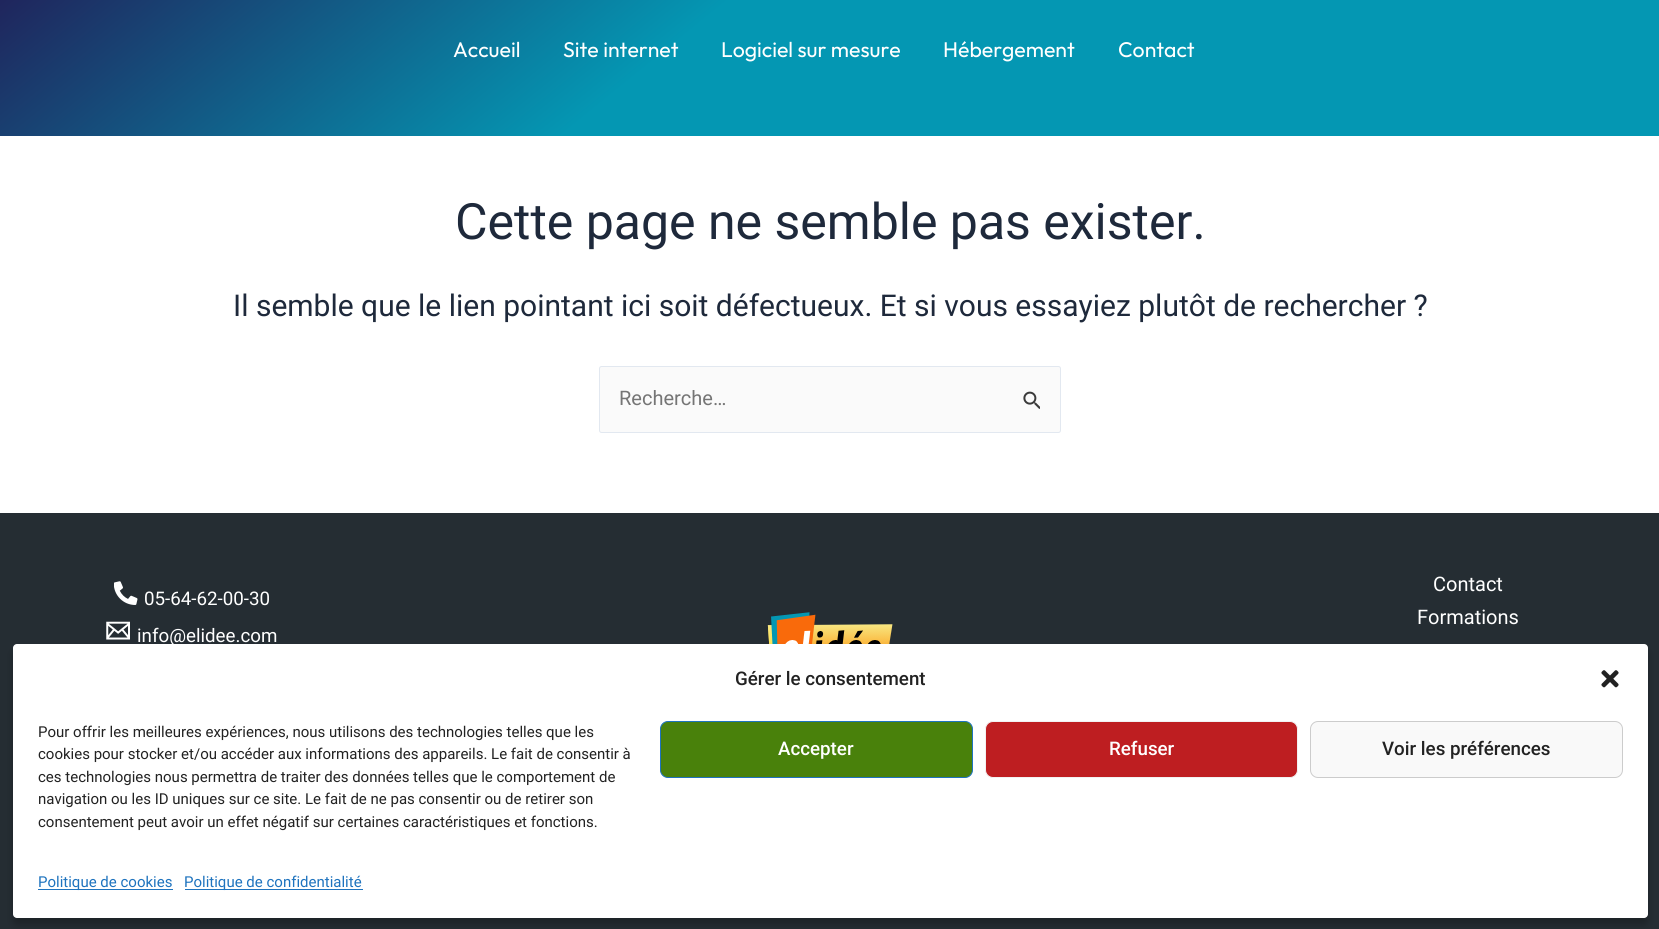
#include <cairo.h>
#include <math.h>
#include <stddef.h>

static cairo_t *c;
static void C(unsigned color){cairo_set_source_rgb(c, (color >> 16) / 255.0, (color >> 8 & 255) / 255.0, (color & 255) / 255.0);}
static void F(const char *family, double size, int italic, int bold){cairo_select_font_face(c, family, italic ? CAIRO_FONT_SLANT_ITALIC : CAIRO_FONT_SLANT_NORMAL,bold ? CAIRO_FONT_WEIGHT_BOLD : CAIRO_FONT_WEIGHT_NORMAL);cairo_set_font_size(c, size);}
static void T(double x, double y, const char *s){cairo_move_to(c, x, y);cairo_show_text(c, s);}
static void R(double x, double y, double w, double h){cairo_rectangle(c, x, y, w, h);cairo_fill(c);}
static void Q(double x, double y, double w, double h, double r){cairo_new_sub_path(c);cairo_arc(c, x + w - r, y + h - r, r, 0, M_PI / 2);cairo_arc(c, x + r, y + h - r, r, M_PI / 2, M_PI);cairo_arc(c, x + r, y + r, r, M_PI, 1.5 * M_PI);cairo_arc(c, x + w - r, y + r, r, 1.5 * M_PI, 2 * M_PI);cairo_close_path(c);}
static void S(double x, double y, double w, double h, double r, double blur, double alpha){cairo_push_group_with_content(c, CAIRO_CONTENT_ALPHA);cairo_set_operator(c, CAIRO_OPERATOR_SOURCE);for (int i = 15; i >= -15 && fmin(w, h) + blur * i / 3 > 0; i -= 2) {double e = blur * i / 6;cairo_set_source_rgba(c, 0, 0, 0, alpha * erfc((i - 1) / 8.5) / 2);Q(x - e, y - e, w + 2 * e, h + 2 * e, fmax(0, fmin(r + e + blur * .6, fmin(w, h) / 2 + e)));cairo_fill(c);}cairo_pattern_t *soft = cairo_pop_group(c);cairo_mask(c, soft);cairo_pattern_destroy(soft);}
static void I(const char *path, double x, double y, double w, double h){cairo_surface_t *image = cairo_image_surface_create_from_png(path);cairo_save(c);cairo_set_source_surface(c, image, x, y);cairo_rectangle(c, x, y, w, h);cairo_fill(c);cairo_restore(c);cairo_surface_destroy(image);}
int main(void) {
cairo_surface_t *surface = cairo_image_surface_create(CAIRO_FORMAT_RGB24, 1659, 929);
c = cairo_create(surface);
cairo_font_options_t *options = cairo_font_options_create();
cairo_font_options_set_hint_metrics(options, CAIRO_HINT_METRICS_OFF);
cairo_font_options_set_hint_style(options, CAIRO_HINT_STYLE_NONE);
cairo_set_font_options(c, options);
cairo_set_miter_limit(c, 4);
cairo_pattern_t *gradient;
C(0xffffff);
cairo_paint(c);
gradient = cairo_pattern_create_linear(1212,499,448,-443);
cairo_pattern_add_color_stop_rgba(gradient,.57,0.016,0.592,0.702,1);
cairo_pattern_add_color_stop_rgba(gradient,1,0.137,0.086,0.318,1);
cairo_set_source(c,gradient);
cairo_pattern_destroy(gradient);
R(0,0,1659,136);
F("Outfit Thin",21.25,0,0);
C(0xffffff);
T(453,57,"Accueil");
T(563,57,"Site internet");
T(721,57,"Logiciel sur mesure");
T(943,57,"Hébergement");
T(1118,57,"Contact");
F("Roboto",50,0,0);
C(0x1e293b);
T(455,239,"Cette page ne semble pas exister.");
F("Roboto",30,0,0);
T(233,316,"Il semble que le lien pointant ici soit défectueux. Et si vous essayiez plutôt de rechercher ?");
C(0xfafafa);
Q(599.5,366.5,461,66,2);
cairo_fill_preserve(c);
C(0xe2e8f0);
cairo_set_line_width(c,1);
cairo_stroke(c);
F("Roboto",20,0,0);
C(0x757575);
T(619,405,"Recherche…");
I("1.png",1023,391,17,18);
C(0x252d33);
R(0,513,1659,416);
I("2.png",114,581,24,24);
F("Roboto",18.75,0,0);
C(0xffffff);
T(144,605,"05-64-62-00-30");
I("3.png",106,621,24,19);
T(137,642,"info@elidee.com");
I("4.png",767,612,126,32);
F("Roboto",20,0,0);
T(1433,591,"Contact");
T(1417,624,"Formations");
C(0x000000);
S(13,651,1635,274,4,4,.23);
C(0xffffff);
Q(13,644,1635,274,4);
cairo_fill(c);
F("Roboto Medium",18.75,0,0);
C(0x222222);
T(735,685,"Gérer le consentement");
I("5.png",1601,670,18,18);
F("Roboto",15,0,0);
T(38,737,"Pour offrir les meilleures expériences, nous utilisons des technologies telles que les");
T(38,759,"cookies pour stocker et/ou accéder aux informations des appareils. Le fait de consentir à");
T(38,782,"ces technologies nous permettra de traiter des données telles que le comportement de");
T(38,804,"navigation ou les ID uniques sur ce site. Le fait de ne pas consentir ou de retirer son");
T(38,827,"consentement peut avoir un effet négatif sur certaines caractéristiques et fonctions.");
C(0x49810b);
Q(660.5,721.5,312,56,7.5);
cairo_fill_preserve(c);
C(0x1e73be);
cairo_stroke(c);
F("Roboto Medium",18.75,0,0);
C(0xffffff);
T(778,755,"Accepter");
C(0xbe1e21);
Q(985.5,721.5,312,56,7.5);
cairo_fill_preserve(c);
C(0xf2f2f2);
cairo_stroke(c);
C(0xffffff);
T(1109,755,"Refuser");
C(0xf9f9f9);
Q(1310.5,721.5,312,56,7.5);
cairo_fill_preserve(c);
C(0xcccccc);
cairo_stroke(c);
C(0x222222);
T(1382,755,"Voir les préférences");
C(0x1e73be);
R(38,889,135,1);
F("Roboto",15,0,0);
T(38,887,"Politique de cookies");
R(185,889,178,1);
T(184,887,"Politique de confidentialité");
cairo_surface_write_to_png(surface, "o.png");
cairo_font_options_destroy(options);
cairo_destroy(c);
cairo_surface_destroy(surface);
return 0;
}
